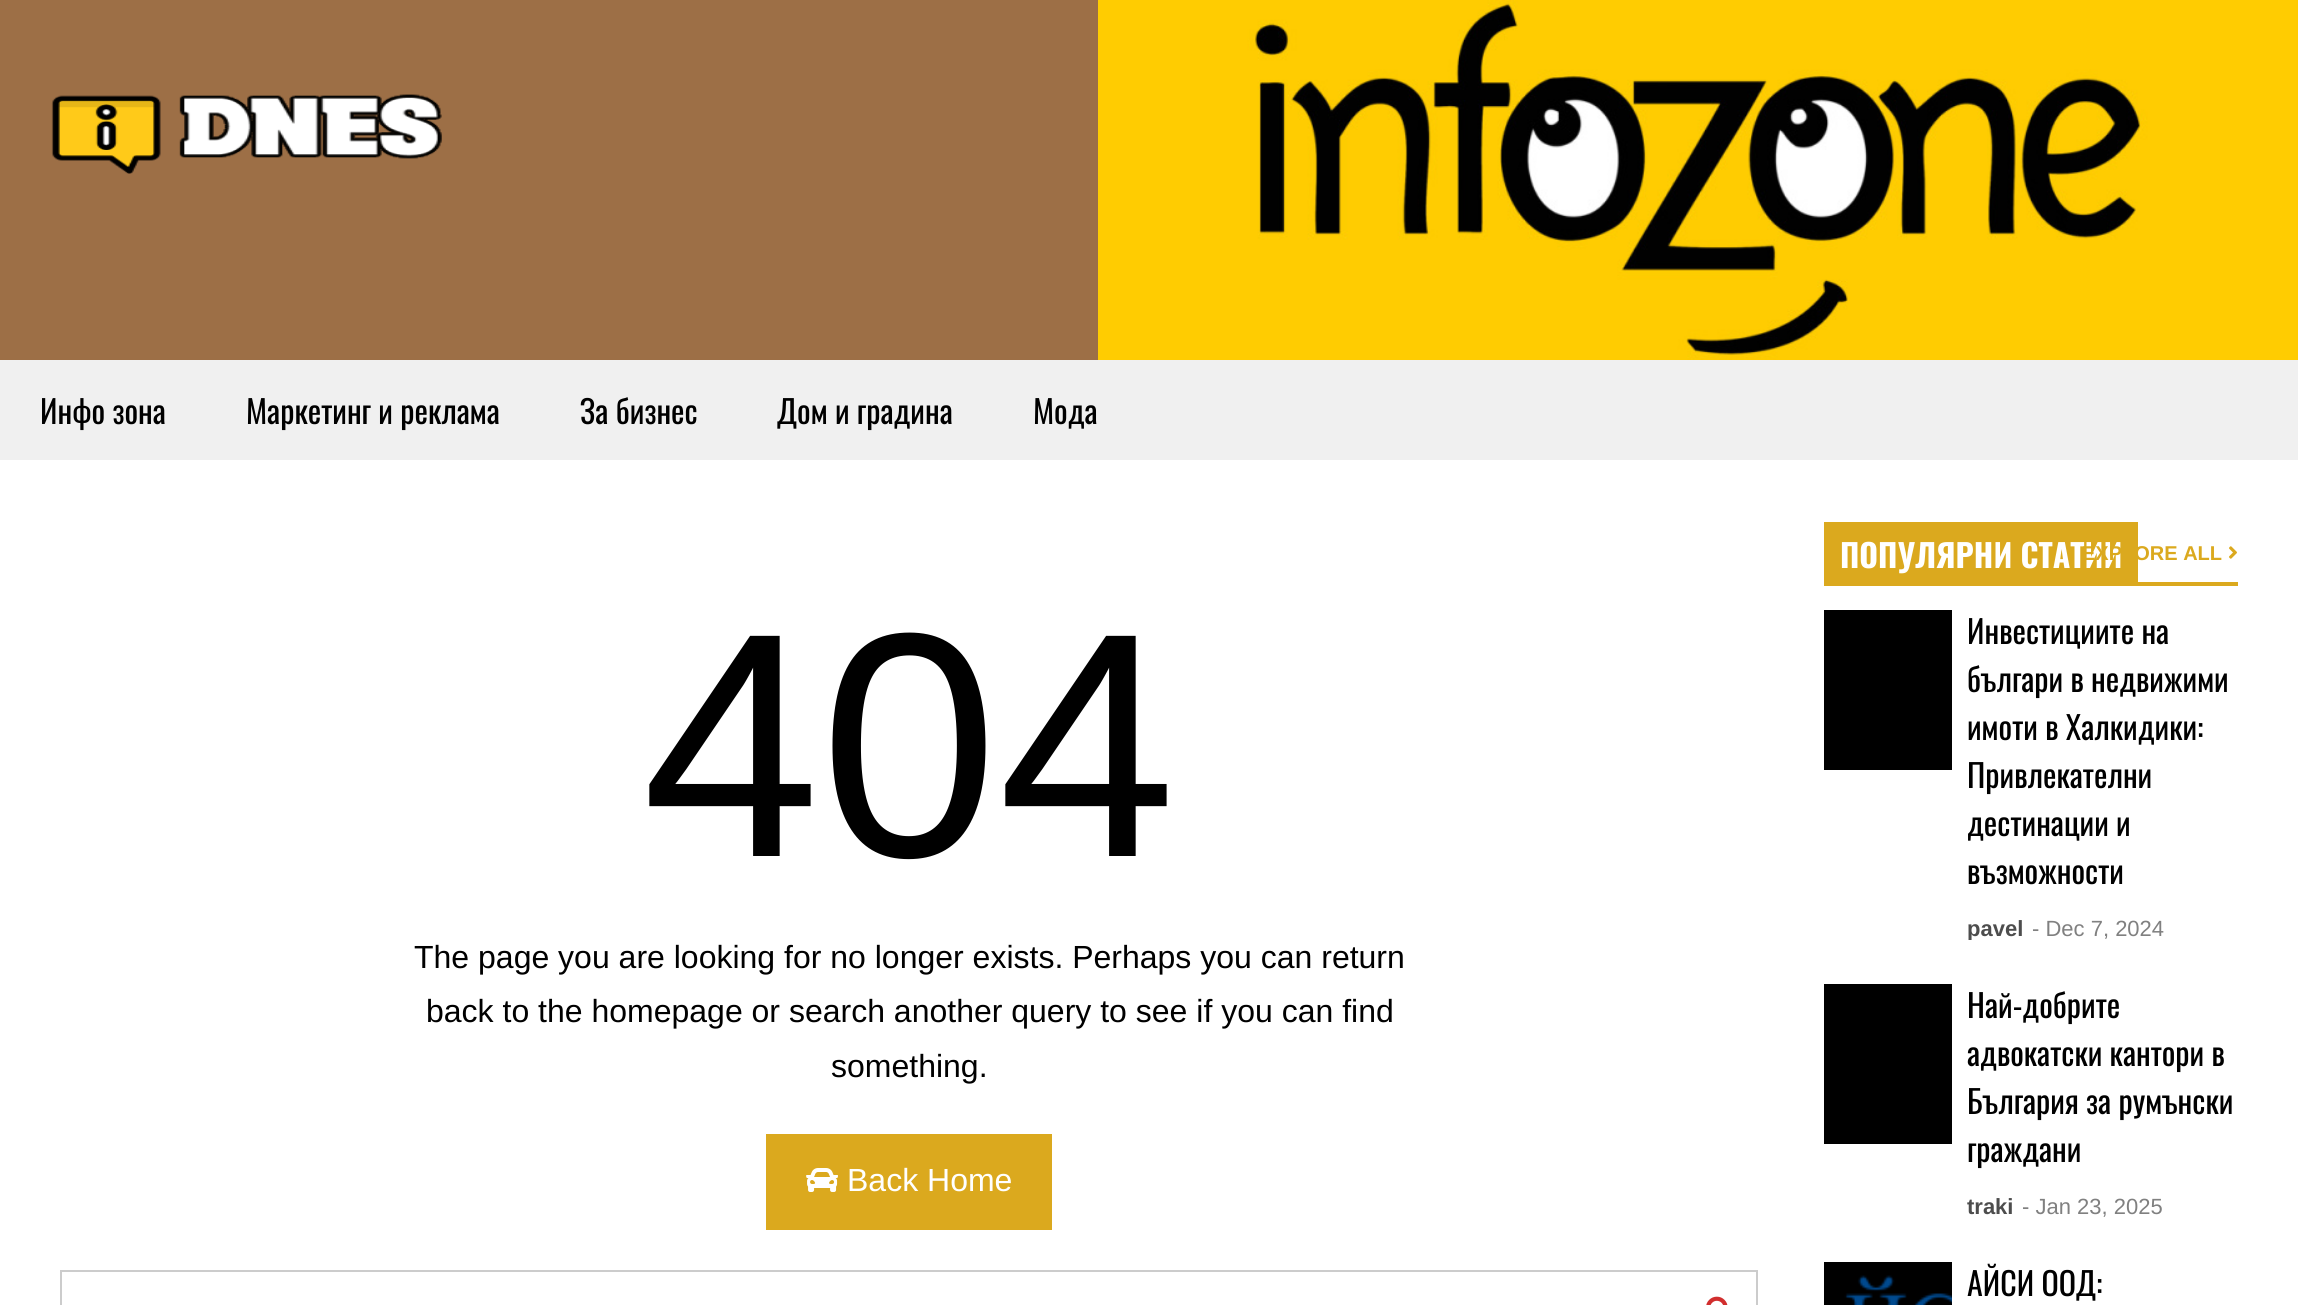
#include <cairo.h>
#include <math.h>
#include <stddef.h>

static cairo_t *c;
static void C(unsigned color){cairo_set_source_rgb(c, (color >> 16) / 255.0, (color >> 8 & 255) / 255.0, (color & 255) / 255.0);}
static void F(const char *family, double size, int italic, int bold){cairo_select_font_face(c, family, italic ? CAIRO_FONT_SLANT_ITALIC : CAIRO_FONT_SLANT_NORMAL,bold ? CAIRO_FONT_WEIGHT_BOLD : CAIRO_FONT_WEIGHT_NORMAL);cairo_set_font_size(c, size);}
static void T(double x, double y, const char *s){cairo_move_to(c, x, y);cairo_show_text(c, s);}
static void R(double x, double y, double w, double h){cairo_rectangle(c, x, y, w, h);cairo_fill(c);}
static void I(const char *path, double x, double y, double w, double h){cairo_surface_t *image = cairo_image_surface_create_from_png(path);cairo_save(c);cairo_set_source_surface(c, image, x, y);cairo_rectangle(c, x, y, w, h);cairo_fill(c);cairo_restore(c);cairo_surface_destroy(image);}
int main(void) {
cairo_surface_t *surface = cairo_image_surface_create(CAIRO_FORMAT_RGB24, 2298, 1305);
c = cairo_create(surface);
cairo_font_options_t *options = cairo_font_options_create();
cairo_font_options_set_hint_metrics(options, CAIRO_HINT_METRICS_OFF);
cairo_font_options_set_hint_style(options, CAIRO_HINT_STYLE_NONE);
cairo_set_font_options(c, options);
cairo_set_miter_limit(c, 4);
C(0x9d6f46);
cairo_paint(c);
I("1.png",51,94,391,80);
I("2.png",1098,0,1200,360);
C(0xf0f0f0);
R(0,360,2298,100);
F("Oswald",32,0,0);
C(0x000000);
T(40,424,"Инфо зона");
T(246,424,"Маркетинг и реклама");
T(580,424,"За бизнес");
T(777,424,"Дом и градина");
T(1033,424,"Мода");
C(0xffffff);
R(0,460,2298,845);
F("Liberation Sans",320,0,0);
C(0x000000);
T(642,856,"404");
F("Liberation Sans",32,0,0);
T(414,968,"The page you are looking for no longer exists. Perhaps you can return");
T(426,1022,"back to the homepage or search another query to see if you can find");
T(831,1077,"something.");
C(0xdba91e);
R(766,1134,286,96);
I("3.png",806,1168,32,24);
C(0xffffff);
T(847,1191,"Back Home");
cairo_rectangle(c,61,1271,1696,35);
C(0xcccccc);
cairo_stroke(c);
I("4.png",1706,1296,22,9);
C(0xdba91e);
R(2138,582,100,4);
R(1824,522,314,64);
F("Oswald",32,0,1);
C(0xffffff);
T(1840,568,"ПОПУЛЯРНИ СТАТИИ");
F("Liberation Sans",20,0,1);
C(0xdba91e);
T(2082,560,"EXPLORE ALL");
I("5.png",2229,546,8,13);
C(0x000000);
R(1824,610,128,160);
F("Oswald",32,0,0);
T(1967,644,"Инвестициите на");
T(1967,692,"българи в недвижими");
T(1967,740,"имоти в Халкидики:");
T(1967,788,"Привлекателни");
T(1967,836,"дестинации и");
T(1967,884,"възможности");
cairo_save(c);
cairo_rectangle(c,1824,606,414,334);
cairo_clip(c);
F("Liberation Sans",22,0,1);
C(0x4d4d4d);
T(1967,936,"pavel");
cairo_restore(c);
F("Liberation Sans",22,0,0);
C(0x808080);
T(2032,936,"- Dec 7, 2024");
C(0x000000);
R(1824,984,128,160);
F("Oswald",32,0,0);
T(1967,1018,"Най-добрите");
T(1967,1066,"адвокатски кантори в");
T(1967,1114,"България за румънски");
T(1967,1162,"граждани");
F("Liberation Sans",22,0,1);
C(0x4d4d4d);
T(1967,1214,"traki");
F("Liberation Sans",22,0,0);
C(0x808080);
T(2022,1214,"- Jan 23, 2025");
C(0x000000);
R(1824,1262,128,43);
I("6.png",1844,1275,108,30);
F("Oswald",32,0,0);
T(1967,1296,"АЙСИ ООД:");
cairo_surface_write_to_png(surface, "o.png");
cairo_font_options_destroy(options);
cairo_destroy(c);
cairo_surface_destroy(surface);
return 0;
}
